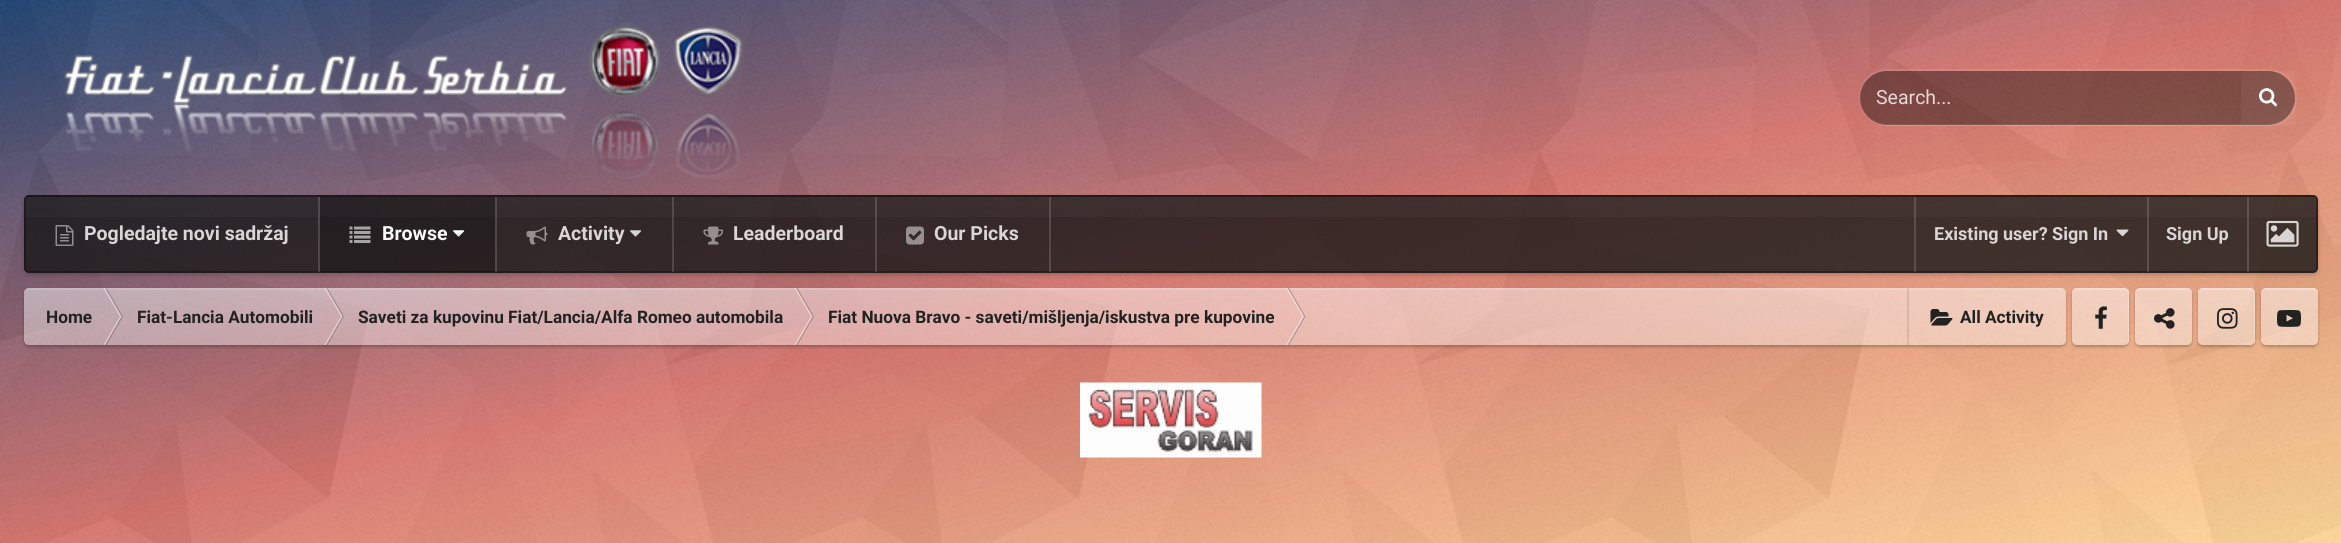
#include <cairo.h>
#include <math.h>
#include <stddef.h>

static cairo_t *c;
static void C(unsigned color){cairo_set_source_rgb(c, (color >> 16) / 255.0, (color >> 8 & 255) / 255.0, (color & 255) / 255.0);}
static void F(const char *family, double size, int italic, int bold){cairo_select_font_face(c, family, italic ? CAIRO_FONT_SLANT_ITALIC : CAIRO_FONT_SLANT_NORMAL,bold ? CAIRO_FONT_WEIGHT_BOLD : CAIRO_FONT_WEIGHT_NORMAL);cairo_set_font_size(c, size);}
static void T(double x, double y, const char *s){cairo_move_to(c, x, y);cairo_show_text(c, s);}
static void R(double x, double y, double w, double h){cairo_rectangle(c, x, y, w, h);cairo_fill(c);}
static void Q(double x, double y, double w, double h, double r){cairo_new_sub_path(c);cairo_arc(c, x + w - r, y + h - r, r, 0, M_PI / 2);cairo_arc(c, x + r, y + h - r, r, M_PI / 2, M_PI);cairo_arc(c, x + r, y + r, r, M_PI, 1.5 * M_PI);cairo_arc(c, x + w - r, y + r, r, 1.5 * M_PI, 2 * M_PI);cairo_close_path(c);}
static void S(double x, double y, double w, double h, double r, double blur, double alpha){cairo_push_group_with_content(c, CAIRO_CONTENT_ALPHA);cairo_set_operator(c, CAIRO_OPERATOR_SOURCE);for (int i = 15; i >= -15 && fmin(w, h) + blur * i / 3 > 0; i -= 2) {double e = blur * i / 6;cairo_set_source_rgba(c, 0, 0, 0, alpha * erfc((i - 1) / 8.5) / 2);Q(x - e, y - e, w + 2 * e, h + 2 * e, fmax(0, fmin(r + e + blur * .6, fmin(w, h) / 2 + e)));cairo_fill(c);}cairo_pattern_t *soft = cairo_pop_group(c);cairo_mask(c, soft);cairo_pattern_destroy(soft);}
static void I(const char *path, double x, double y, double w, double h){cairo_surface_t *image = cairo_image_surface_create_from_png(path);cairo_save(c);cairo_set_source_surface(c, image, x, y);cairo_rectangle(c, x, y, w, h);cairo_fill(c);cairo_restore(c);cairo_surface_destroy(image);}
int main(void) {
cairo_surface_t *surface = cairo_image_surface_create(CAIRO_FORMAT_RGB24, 2341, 543);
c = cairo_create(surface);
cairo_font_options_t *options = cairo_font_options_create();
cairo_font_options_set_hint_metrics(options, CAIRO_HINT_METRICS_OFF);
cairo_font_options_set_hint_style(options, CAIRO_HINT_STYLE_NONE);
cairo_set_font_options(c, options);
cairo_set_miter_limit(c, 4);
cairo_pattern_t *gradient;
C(0xffffff);
cairo_paint(c);
gradient = cairo_pattern_create_linear(1290,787,1051,-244);
cairo_pattern_add_color_stop_rgba(gradient,0,1,0.839,0.573,1);
cairo_pattern_add_color_stop_rgba(gradient,.5,0.835,0.439,0.408,1);
cairo_pattern_add_color_stop_rgba(gradient,1,0.09,0.243,0.435,1);
cairo_set_source(c,gradient);
cairo_pattern_destroy(gradient);
R(0,0,2341,543);
I("1.png",0,0,2341,543);
I("2.png",64,22,679,160);
Q(1860,70,436,55,27.5);
cairo_set_source_rgba(c,1,1,1,0.1);
cairo_stroke(c);
cairo_new_path(c);
cairo_move_to(c,1860,98);
cairo_curve_to(c,1860,113,1872,126,1887,126);
cairo_line_to(c,2268,126);
cairo_curve_to(c,2283,126,2295,113,2295,98);
cairo_curve_to(c,2295,113,2283,124,2268,124);
cairo_line_to(c,1887,124);
cairo_curve_to(c,1872,124,1860,113,1860,98);
cairo_close_path(c);
cairo_fill(c);
cairo_set_source_rgba(c,0,0,0,0.4);
Q(1860,71,435,54,27);
cairo_fill(c);
F("Roboto",19.5,0,0);
C(0xe5dad9);
T(1876,104,"Search...");
cairo_set_source_rgba(c,1,1,1,0.05);
R(2241,71,54,54);
I("3.png",2259,88,19,19);
cairo_save(c);
cairo_set_fill_rule(c,CAIRO_FILL_RULE_EVEN_ODD);
cairo_new_path(c);
cairo_move_to(c,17,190);
cairo_line_to(c,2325,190);
cairo_line_to(c,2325,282);
cairo_line_to(c,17,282);
cairo_close_path(c);
cairo_move_to(c,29,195);
cairo_line_to(c,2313,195);
cairo_curve_to(c,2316,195,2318,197,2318,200);
cairo_line_to(c,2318,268);
cairo_curve_to(c,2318,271,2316,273,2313,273);
cairo_line_to(c,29,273);
cairo_curve_to(c,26,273,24,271,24,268);
cairo_line_to(c,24,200);
cairo_curve_to(c,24,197,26,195,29,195);
cairo_close_path(c);
cairo_clip(c);
C(0x000000);
S(24,197,2294,78,5,2,.2);
cairo_restore(c);
cairo_set_source_rgba(c,0.09,0.09,0.09,0.8);
Q(24,195,2294,78,5);
cairo_fill(c);
gradient = cairo_pattern_create_linear(1171,196,1171,272);
cairo_pattern_add_color_stop_rgba(gradient,0,1,1,1,.03);
cairo_pattern_add_color_stop_rgba(gradient,1,1,1,1,0);
cairo_set_source(c,gradient);
cairo_pattern_destroy(gradient);
R(24,197,2294,20);
gradient = cairo_pattern_create_linear(1171,271,1171,347);
cairo_pattern_add_color_stop_rgba(gradient,0,1,1,1,.03);
cairo_pattern_add_color_stop_rgba(gradient,1,1,1,1,0);
cairo_set_source(c,gradient);
cairo_pattern_destroy(gradient);
R(24,272,2294,1);
Q(25,196,2292,76,4);
cairo_set_source_rgba(c,0,0,0,0.35);
cairo_stroke(c);
cairo_set_source_rgba(c,1,1,1,0.15);
R(318,197,2,75);
I("4.png",55,225,19,21);
F("Roboto",19.5,0,1);
C(0xd9d6d5);
T(84,240,"Pogledajte novi sadržaj");
cairo_set_source_rgba(c,1,1,1,0.15);
R(495,197,2,75);
cairo_set_source_rgba(c,0,0,0,0.2);
R(320,197,175,75);
I("5.png",349,226,22,17);
C(0xffffff);
T(382,240,"Browse");
I("6.png",453,230,12,7);
cairo_set_source_rgba(c,1,1,1,0.15);
R(672,197,2,75);
I("7.png",526,226,22,19);
C(0xd9d6d5);
T(558,240,"Activity");
I("8.png",630,230,12,7);
cairo_set_source_rgba(c,1,1,1,0.15);
R(875,197,2,75);
I("9.png",703,226,20,19);
C(0xd9d6d5);
T(733,240,"Leaderboard");
cairo_set_source_rgba(c,1,1,1,0.15);
R(1049,197,2,75);
I("10.png",906,226,18,19);
C(0xd9d6d5);
T(934,240,"Our Picks");
cairo_set_source_rgba(c,1,1,1,0.15);
R(1914,197,2,75);
R(2147,197,2,75);
F("Roboto",18,0,1);
C(0xd9d6d5);
T(1934,240,"Existing user? Sign In");
I("11.png",2116,229,13,8);
cairo_set_source_rgba(c,1,1,1,0.15);
R(2247,197,2,75);
C(0xd9d6d5);
T(2166,240,"Sign Up");
I("12.png",2266,220,33,27);
cairo_save(c);
cairo_set_fill_rule(c,CAIRO_FILL_RULE_EVEN_ODD);
cairo_new_path(c);
cairo_move_to(c,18,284);
cairo_line_to(c,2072,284);
cairo_line_to(c,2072,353);
cairo_line_to(c,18,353);
cairo_close_path(c);
cairo_move_to(c,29,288);
cairo_line_to(c,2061,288);
cairo_curve_to(c,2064,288,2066,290,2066,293);
cairo_line_to(c,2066,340);
cairo_curve_to(c,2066,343,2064,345,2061,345);
cairo_line_to(c,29,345);
cairo_curve_to(c,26,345,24,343,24,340);
cairo_line_to(c,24,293);
cairo_curve_to(c,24,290,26,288,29,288);
cairo_close_path(c);
cairo_clip(c);
C(0x000000);
S(24,290,2042,57,5,1.5,.25);
cairo_restore(c);
cairo_set_source_rgba(c,1,1,1,0.4);
Q(24,288,2042,57,5);
cairo_fill(c);
gradient = cairo_pattern_create_linear(1045,288,1045,345);
cairo_pattern_add_color_stop_rgba(gradient,0,1,1,1,.15);
cairo_pattern_add_color_stop_rgba(gradient,1,1,1,1,0);
cairo_set_source(c,gradient);
cairo_pattern_destroy(gradient);
Q(24,288,2042,57,5);
cairo_fill(c);
cairo_set_source_rgba(c,1,1,1,0.15);
cairo_new_path(c);
cairo_move_to(c,28,290);
cairo_line_to(c,2061,290);
cairo_curve_to(c,2063,290,2066,292,2066,294);
cairo_curve_to(c,2066,291,2064,288,2061,288);
cairo_line_to(c,29,288);
cairo_curve_to(c,27,288,25,290,24,292);
cairo_line_to(c,24,294);
cairo_curve_to(c,24,292,26,290,28,290);
cairo_close_path(c);
cairo_fill(c);
F("Roboto",17.25,0,1);
C(0x222222);
T(46,323,"Home");
cairo_set_source_rgba(c,1,1,1,0.5);
cairo_new_path(c);
cairo_move_to(c,103.5,288);
cairo_line_to(c,105,288);
cairo_line_to(c,121.5,316.5);
cairo_line_to(c,120,316.5);
cairo_close_path(c);
cairo_fill(c);
cairo_set_source_rgba(c,0,0,0,0.2);
cairo_new_path(c);
cairo_move_to(c,105,288);
cairo_line_to(c,106.5,288);
cairo_line_to(c,123,316.5);
cairo_line_to(c,121.5,316.5);
cairo_close_path(c);
cairo_fill(c);
cairo_set_source_rgba(c,1,1,1,0.5);
cairo_new_path(c);
cairo_move_to(c,120,316.5);
cairo_line_to(c,121.5,316.5);
cairo_line_to(c,105,345);
cairo_line_to(c,103.5,345);
cairo_close_path(c);
cairo_fill(c);
cairo_set_source_rgba(c,0,0,0,0.2);
cairo_new_path(c);
cairo_move_to(c,121.5,316.5);
cairo_line_to(c,123,316.5);
cairo_line_to(c,106.5,345);
cairo_line_to(c,105,345);
cairo_close_path(c);
cairo_fill(c);
C(0x222222);
T(137,323,"Fiat-Lancia Automobili");
cairo_set_source_rgba(c,1,1,1,0.5);
cairo_new_path(c);
cairo_move_to(c,324.5,288);
cairo_line_to(c,326,288);
cairo_line_to(c,342.5,316.5);
cairo_line_to(c,341,316.5);
cairo_close_path(c);
cairo_fill(c);
cairo_set_source_rgba(c,0,0,0,0.2);
cairo_new_path(c);
cairo_move_to(c,326,288);
cairo_line_to(c,327.5,288);
cairo_line_to(c,344,316.5);
cairo_line_to(c,342.5,316.5);
cairo_close_path(c);
cairo_fill(c);
cairo_set_source_rgba(c,1,1,1,0.5);
cairo_new_path(c);
cairo_move_to(c,341,316.5);
cairo_line_to(c,342.5,316.5);
cairo_line_to(c,326,345);
cairo_line_to(c,324.5,345);
cairo_close_path(c);
cairo_fill(c);
cairo_set_source_rgba(c,0,0,0,0.2);
cairo_new_path(c);
cairo_move_to(c,342.5,316.5);
cairo_line_to(c,344,316.5);
cairo_line_to(c,327.5,345);
cairo_line_to(c,326,345);
cairo_close_path(c);
cairo_fill(c);
C(0x222222);
T(358,323,"Saveti za kupovinu Fiat/Lancia/Alfa Romeo automobila");
cairo_set_source_rgba(c,1,1,1,0.5);
cairo_new_path(c);
cairo_move_to(c,794.5,288);
cairo_line_to(c,796,288);
cairo_line_to(c,812.5,316.5);
cairo_line_to(c,811,316.5);
cairo_close_path(c);
cairo_fill(c);
cairo_set_source_rgba(c,0,0,0,0.2);
cairo_new_path(c);
cairo_move_to(c,796,288);
cairo_line_to(c,797.5,288);
cairo_line_to(c,814,316.5);
cairo_line_to(c,812.5,316.5);
cairo_close_path(c);
cairo_fill(c);
cairo_set_source_rgba(c,1,1,1,0.5);
cairo_new_path(c);
cairo_move_to(c,811,316.5);
cairo_line_to(c,812.5,316.5);
cairo_line_to(c,796,345);
cairo_line_to(c,794.5,345);
cairo_close_path(c);
cairo_fill(c);
cairo_set_source_rgba(c,0,0,0,0.2);
cairo_new_path(c);
cairo_move_to(c,812.5,316.5);
cairo_line_to(c,814,316.5);
cairo_line_to(c,797.5,345);
cairo_line_to(c,796,345);
cairo_close_path(c);
cairo_fill(c);
C(0x222222);
T(828,323,"Fiat Nuova Bravo - saveti/mišljenja/iskustva pre kupovine");
cairo_set_source_rgba(c,1,1,1,0.5);
cairo_new_path(c);
cairo_move_to(c,1286,288);
cairo_line_to(c,1287.5,288);
cairo_line_to(c,1304,316.5);
cairo_line_to(c,1302.5,316.5);
cairo_close_path(c);
cairo_fill(c);
cairo_set_source_rgba(c,0,0,0,0.2);
cairo_new_path(c);
cairo_move_to(c,1287.5,288);
cairo_line_to(c,1289,288);
cairo_line_to(c,1305.5,316.5);
cairo_line_to(c,1304,316.5);
cairo_close_path(c);
cairo_fill(c);
cairo_set_source_rgba(c,1,1,1,0.5);
cairo_new_path(c);
cairo_move_to(c,1302.5,316.5);
cairo_line_to(c,1304,316.5);
cairo_line_to(c,1287.5,345);
cairo_line_to(c,1286,345);
cairo_close_path(c);
cairo_fill(c);
cairo_set_source_rgba(c,0,0,0,0.2);
cairo_new_path(c);
cairo_move_to(c,1304,316.5);
cairo_line_to(c,1305.5,316.5);
cairo_line_to(c,1289,345);
cairo_line_to(c,1287.5,345);
cairo_close_path(c);
cairo_fill(c);
cairo_set_source_rgba(c,0,0,0,0.1);
R(1907,288,2,57);
I("13.png",1930,309,23,17);
C(0x222222);
T(1960,323,"All Activity");
cairo_save(c);
cairo_set_fill_rule(c,CAIRO_FILL_RULE_EVEN_ODD);
cairo_new_path(c);
cairo_move_to(c,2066,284);
cairo_line_to(c,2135,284);
cairo_line_to(c,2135,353);
cairo_line_to(c,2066,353);
cairo_close_path(c);
cairo_move_to(c,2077,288);
cairo_line_to(c,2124,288);
cairo_curve_to(c,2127,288,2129,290,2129,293);
cairo_line_to(c,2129,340);
cairo_curve_to(c,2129,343,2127,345,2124,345);
cairo_line_to(c,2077,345);
cairo_curve_to(c,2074,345,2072,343,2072,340);
cairo_line_to(c,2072,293);
cairo_curve_to(c,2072,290,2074,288,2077,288);
cairo_close_path(c);
cairo_clip(c);
C(0x000000);
S(2072,290,57,57,5,1.5,.25);
cairo_restore(c);
cairo_set_source_rgba(c,1,1,1,0.4);
Q(2072,288,57,57,5);
cairo_fill(c);
gradient = cairo_pattern_create_linear(2100,288,2100,345);
cairo_pattern_add_color_stop_rgba(gradient,0,1,1,1,.15);
cairo_pattern_add_color_stop_rgba(gradient,1,1,1,1,0);
cairo_set_source(c,gradient);
cairo_pattern_destroy(gradient);
Q(2072,288,57,57,5);
cairo_fill(c);
cairo_set_source_rgba(c,1,1,1,0.15);
cairo_new_path(c);
cairo_move_to(c,2076,290);
cairo_line_to(c,2125,290);
cairo_curve_to(c,2130,291,2128,299,2128,302);
cairo_line_to(c,2128,343);
cairo_curve_to(c,2129,342,2129,341,2129,340);
cairo_line_to(c,2129,293);
cairo_curve_to(c,2129,290,2127,288,2124,288);
cairo_line_to(c,2077,288);
cairo_curve_to(c,2074,288,2072,290,2072,293);
cairo_line_to(c,2072,294);
cairo_curve_to(c,2072,292,2074,290,2076,290);
cairo_close_path(c);
cairo_fill(c);
I("14.png",2095,306,12,23);
cairo_new_path(c);
cairo_move_to(c,2076,290);
cairo_curve_to(c,2074,290,2072,292,2072,294);
cairo_line_to(c,2072,293);
cairo_curve_to(c,2072,290,2074,288,2077,288);
cairo_line_to(c,2124,288);
cairo_curve_to(c,2127,288,2129,290,2129,293);
cairo_line_to(c,2129,340);
cairo_curve_to(c,2129,341,2129,342,2128,343);
cairo_line_to(c,2128,302);
cairo_curve_to(c,2128,300,2130,290,2124,290);
cairo_close_path(c);
cairo_fill(c);
cairo_save(c);
cairo_set_fill_rule(c,CAIRO_FILL_RULE_EVEN_ODD);
cairo_new_path(c);
cairo_move_to(c,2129,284);
cairo_line_to(c,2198,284);
cairo_line_to(c,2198,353);
cairo_line_to(c,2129,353);
cairo_close_path(c);
cairo_move_to(c,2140,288);
cairo_line_to(c,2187,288);
cairo_curve_to(c,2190,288,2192,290,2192,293);
cairo_line_to(c,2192,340);
cairo_curve_to(c,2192,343,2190,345,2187,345);
cairo_line_to(c,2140,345);
cairo_curve_to(c,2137,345,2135,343,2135,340);
cairo_line_to(c,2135,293);
cairo_curve_to(c,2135,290,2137,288,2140,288);
cairo_close_path(c);
cairo_clip(c);
C(0x000000);
S(2135,290,57,57,5,1.5,.25);
cairo_restore(c);
cairo_set_source_rgba(c,1,1,1,0.4);
Q(2135,288,57,57,5);
cairo_fill(c);
gradient = cairo_pattern_create_linear(2163,288,2163,345);
cairo_pattern_add_color_stop_rgba(gradient,0,1,1,1,.15);
cairo_pattern_add_color_stop_rgba(gradient,1,1,1,1,0);
cairo_set_source(c,gradient);
cairo_pattern_destroy(gradient);
Q(2135,288,57,57,5);
cairo_fill(c);
cairo_set_source_rgba(c,1,1,1,0.15);
cairo_new_path(c);
cairo_move_to(c,2139,290);
cairo_line_to(c,2187,290);
cairo_curve_to(c,2189,290,2192,292,2192,294);
cairo_line_to(c,2192,293);
cairo_curve_to(c,2192,290,2190,288,2187,288);
cairo_line_to(c,2140,288);
cairo_curve_to(c,2138,288,2136,290,2135,292);
cairo_curve_to(c,2136,291,2138,290,2139,290);
cairo_close_path(c);
cairo_fill(c);
cairo_new_path(c);
cairo_move_to(c,2139,290);
cairo_line_to(c,2187,290);
cairo_curve_to(c,2189,290,2192,292,2192,294);
cairo_line_to(c,2192,293);
cairo_curve_to(c,2192,290,2190,288,2187,288);
cairo_line_to(c,2140,288);
cairo_curve_to(c,2138,288,2136,290,2135,292);
cairo_curve_to(c,2136,291,2138,290,2139,290);
cairo_close_path(c);
cairo_fill(c);
I("15.png",2154,308,21,21);
cairo_save(c);
cairo_set_fill_rule(c,CAIRO_FILL_RULE_EVEN_ODD);
cairo_new_path(c);
cairo_move_to(c,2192,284);
cairo_line_to(c,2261,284);
cairo_line_to(c,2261,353);
cairo_line_to(c,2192,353);
cairo_close_path(c);
cairo_move_to(c,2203,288);
cairo_line_to(c,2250,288);
cairo_curve_to(c,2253,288,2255,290,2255,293);
cairo_line_to(c,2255,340);
cairo_curve_to(c,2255,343,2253,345,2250,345);
cairo_line_to(c,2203,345);
cairo_curve_to(c,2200,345,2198,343,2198,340);
cairo_line_to(c,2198,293);
cairo_curve_to(c,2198,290,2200,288,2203,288);
cairo_close_path(c);
cairo_clip(c);
C(0x000000);
S(2198,290,57,57,5,1.5,.25);
cairo_restore(c);
cairo_set_source_rgba(c,1,1,1,0.4);
Q(2198,288,57,57,5);
cairo_fill(c);
gradient = cairo_pattern_create_linear(2226,288,2226,345);
cairo_pattern_add_color_stop_rgba(gradient,0,1,1,1,.15);
cairo_pattern_add_color_stop_rgba(gradient,1,1,1,1,0);
cairo_set_source(c,gradient);
cairo_pattern_destroy(gradient);
Q(2198,288,57,57,5);
cairo_fill(c);
cairo_set_source_rgba(c,1,1,1,0.15);
cairo_new_path(c);
cairo_move_to(c,2202,290);
cairo_line_to(c,2251,290);
cairo_curve_to(c,2256,291,2254,299,2254,302);
cairo_line_to(c,2254,343);
cairo_curve_to(c,2255,342,2255,341,2255,340);
cairo_line_to(c,2255,293);
cairo_curve_to(c,2255,290,2253,288,2250,288);
cairo_line_to(c,2203,288);
cairo_curve_to(c,2200,288,2198,290,2198,293);
cairo_line_to(c,2198,294);
cairo_curve_to(c,2198,292,2200,290,2202,290);
cairo_close_path(c);
cairo_fill(c);
I("16.png",2217,308,21,21);
cairo_new_path(c);
cairo_move_to(c,2202,290);
cairo_curve_to(c,2200,290,2198,292,2198,294);
cairo_line_to(c,2198,293);
cairo_curve_to(c,2198,290,2200,288,2203,288);
cairo_line_to(c,2250,288);
cairo_curve_to(c,2253,288,2255,290,2255,293);
cairo_line_to(c,2255,340);
cairo_curve_to(c,2255,341,2255,342,2254,343);
cairo_line_to(c,2254,302);
cairo_curve_to(c,2254,300,2256,290,2250,290);
cairo_close_path(c);
cairo_fill(c);
cairo_save(c);
cairo_set_fill_rule(c,CAIRO_FILL_RULE_EVEN_ODD);
cairo_new_path(c);
cairo_move_to(c,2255,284);
cairo_line_to(c,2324,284);
cairo_line_to(c,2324,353);
cairo_line_to(c,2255,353);
cairo_close_path(c);
cairo_move_to(c,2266,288);
cairo_line_to(c,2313,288);
cairo_curve_to(c,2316,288,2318,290,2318,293);
cairo_line_to(c,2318,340);
cairo_curve_to(c,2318,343,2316,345,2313,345);
cairo_line_to(c,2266,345);
cairo_curve_to(c,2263,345,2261,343,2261,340);
cairo_line_to(c,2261,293);
cairo_curve_to(c,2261,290,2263,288,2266,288);
cairo_close_path(c);
cairo_clip(c);
C(0x000000);
S(2261,290,57,57,5,1.5,.25);
cairo_restore(c);
cairo_set_source_rgba(c,1,1,1,0.4);
Q(2261,288,57,57,5);
cairo_fill(c);
gradient = cairo_pattern_create_linear(2289,288,2289,345);
cairo_pattern_add_color_stop_rgba(gradient,0,1,1,1,.15);
cairo_pattern_add_color_stop_rgba(gradient,1,1,1,1,0);
cairo_set_source(c,gradient);
cairo_pattern_destroy(gradient);
Q(2261,288,57,57,5);
cairo_fill(c);
cairo_set_source_rgba(c,1,1,1,0.15);
cairo_new_path(c);
cairo_move_to(c,2265,290);
cairo_line_to(c,2313,290);
cairo_curve_to(c,2315,290,2318,292,2318,294);
cairo_line_to(c,2318,293);
cairo_curve_to(c,2318,290,2316,288,2313,288);
cairo_line_to(c,2266,288);
cairo_curve_to(c,2264,288,2262,290,2261,292);
cairo_curve_to(c,2262,291,2264,290,2265,290);
cairo_close_path(c);
cairo_fill(c);
cairo_new_path(c);
cairo_move_to(c,2265,290);
cairo_line_to(c,2313,290);
cairo_curve_to(c,2315,290,2318,292,2318,294);
cairo_line_to(c,2318,293);
cairo_curve_to(c,2318,290,2316,288,2313,288);
cairo_line_to(c,2266,288);
cairo_curve_to(c,2264,288,2262,290,2261,292);
cairo_curve_to(c,2262,291,2264,290,2265,290);
cairo_close_path(c);
cairo_fill(c);
I("17.png",2277,310,24,17);
I("18.png",1080,382,182,76);
cairo_surface_write_to_png(surface, "o.png");
cairo_font_options_destroy(options);
cairo_destroy(c);
cairo_surface_destroy(surface);
return 0;
}
